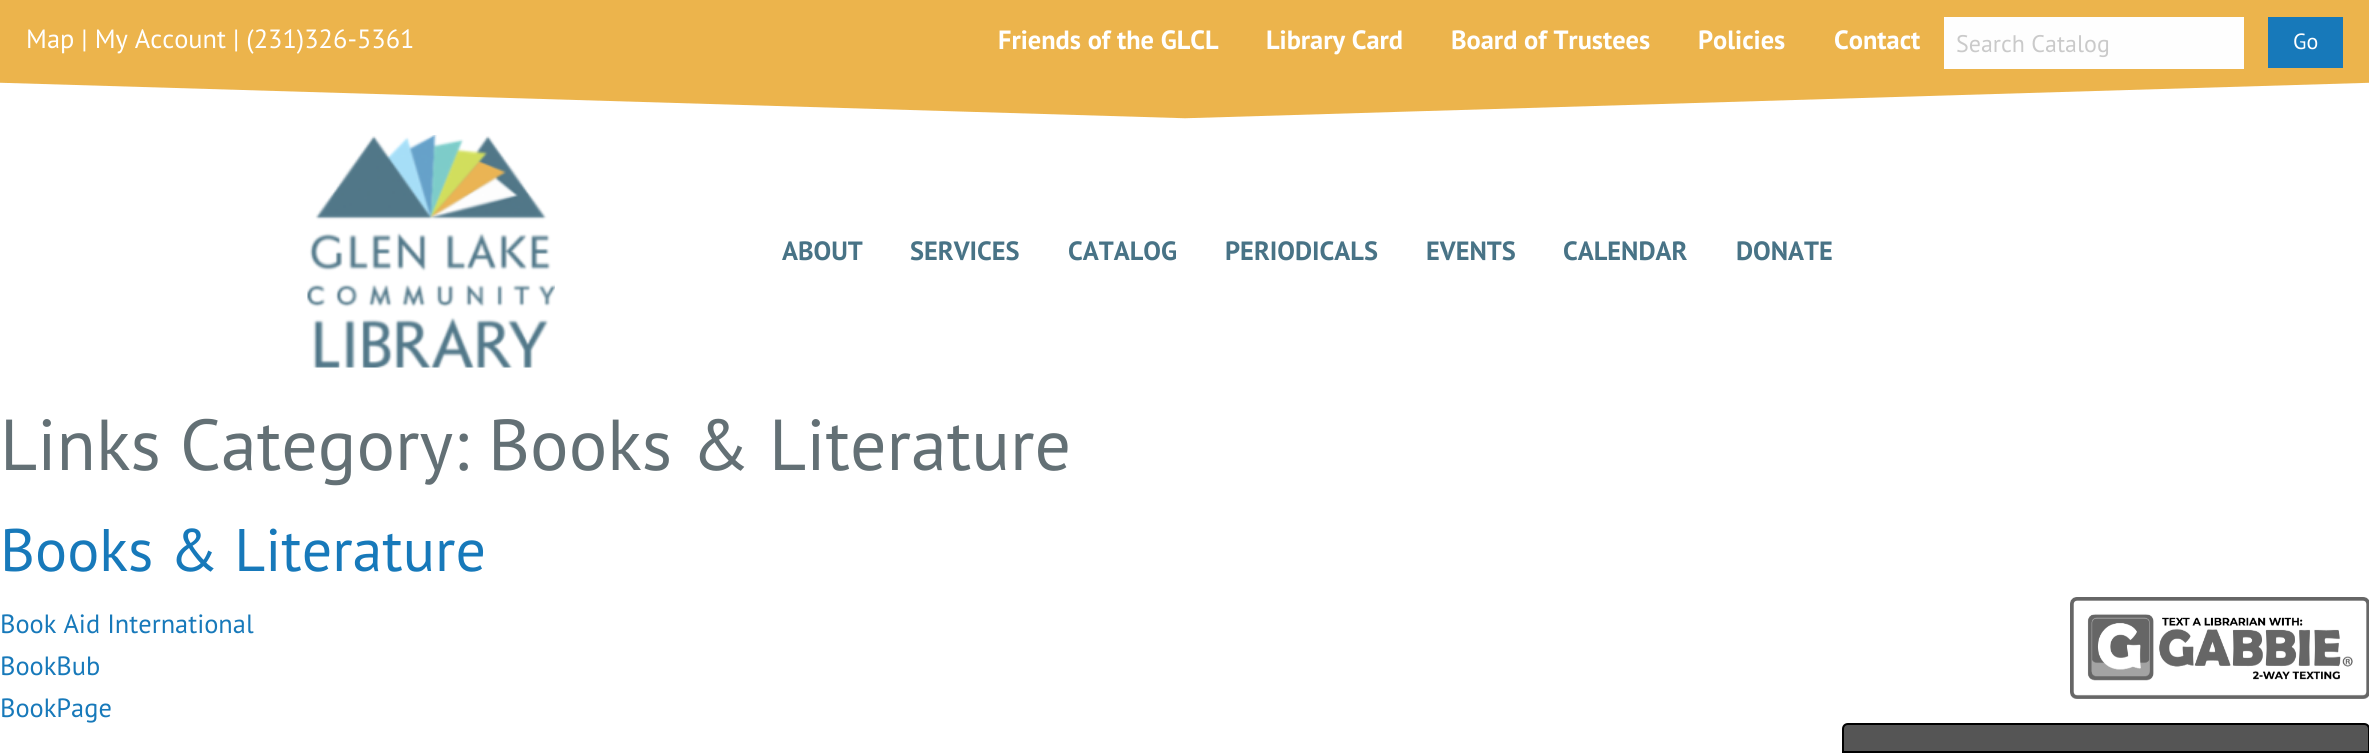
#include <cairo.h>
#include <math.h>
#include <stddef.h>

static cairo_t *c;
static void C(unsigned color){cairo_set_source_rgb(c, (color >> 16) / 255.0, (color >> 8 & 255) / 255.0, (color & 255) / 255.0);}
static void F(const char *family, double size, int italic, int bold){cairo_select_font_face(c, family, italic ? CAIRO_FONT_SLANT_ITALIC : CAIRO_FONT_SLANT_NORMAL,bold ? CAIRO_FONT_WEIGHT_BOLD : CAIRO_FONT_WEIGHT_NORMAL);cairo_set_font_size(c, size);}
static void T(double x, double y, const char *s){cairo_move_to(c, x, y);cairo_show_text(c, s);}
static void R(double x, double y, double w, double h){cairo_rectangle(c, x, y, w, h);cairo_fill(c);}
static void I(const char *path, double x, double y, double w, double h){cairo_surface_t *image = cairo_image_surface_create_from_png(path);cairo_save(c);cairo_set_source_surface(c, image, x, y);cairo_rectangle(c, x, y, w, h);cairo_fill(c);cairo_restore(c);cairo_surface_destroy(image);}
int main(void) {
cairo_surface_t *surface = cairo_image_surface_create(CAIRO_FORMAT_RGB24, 2369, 753);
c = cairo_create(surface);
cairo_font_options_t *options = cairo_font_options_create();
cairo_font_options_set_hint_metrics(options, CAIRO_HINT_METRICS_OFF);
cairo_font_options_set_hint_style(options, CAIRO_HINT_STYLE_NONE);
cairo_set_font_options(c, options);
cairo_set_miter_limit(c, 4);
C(0xffffff);
cairo_paint(c);
C(0xecb44c);
R(0,0,2369,80);
F("PT Sans",26.4,0,0);
C(0xffffff);
T(26,48,"Map | My Account | (231)326-5361");
F("PT Sans",26.4,0,1);
T(998,49,"Friends of the GLCL");
T(1266,49,"Library Card");
T(1451,49,"Board of Trustees");
T(1698,49,"Policies");
T(1834,49,"Contact");
C(0xfefefe);
R(1944,17,300,52);
F("PT Sans",24,0,0);
C(0xcacaca);
T(1956,52,"Search Catalog");
C(0x1779ba);
R(2268,17,75,51);
F("PT Sans",22,0,0);
C(0xffffff);
T(2293,49,"Go");
C(0xecb44c);
cairo_new_path(c);
cairo_move_to(c,0,80);
cairo_line_to(c,1185,115);
cairo_line_to(c,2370,80);
cairo_close_path(c);
cairo_fill(c);
cairo_save(c);
cairo_rectangle(c,0,80,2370,45);
cairo_clip(c);
cairo_new_path(c);
cairo_move_to(c,0,79.5);
cairo_line_to(c,1185,115);
cairo_line_to(c,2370,79.5);
cairo_close_path(c);
cairo_set_line_width(c,6.5);
cairo_stroke(c);
cairo_restore(c);
I("1.png",307,135,248,233);
F("PT Sans",26.4,0,1);
C(0x487386);
T(782,260,"ABOUT");
T(910,260,"SERVICES");
T(1068,260,"CATALOG");
T(1225,260,"PERIODICALS");
T(1426,260,"EVENTS");
T(1563,260,"CALENDAR");
T(1736,260,"DONATE");
F("PT Sans",72,0,0);
C(0x637075);
T(0,470,"Links Category: Books & Literature");
F("PT Sans",60,0,0);
C(0x1779ba);
T(0,571,"Books & Literature");
F("PT Sans",26.4,0,0);
T(0,633,"Book Aid International");
T(0,675,"BookBub");
T(0,717,"BookPage");
I("2.png",2070,597,299,102);
C(0x555555);
cairo_new_path(c);
cairo_move_to(c,1848,724);
cairo_line_to(c,2364,724);
cairo_curve_to(c,2367,724,2369,726,2369,729);
cairo_line_to(c,2369,752);
cairo_line_to(c,1843,752);
cairo_line_to(c,1843,729);
cairo_curve_to(c,1843,726,1845,724,1848,724);
cairo_close_path(c);
cairo_fill_preserve(c);
C(0x000000);
cairo_stroke(c);
cairo_surface_write_to_png(surface, "o.png");
cairo_font_options_destroy(options);
cairo_destroy(c);
cairo_surface_destroy(surface);
return 0;
}
